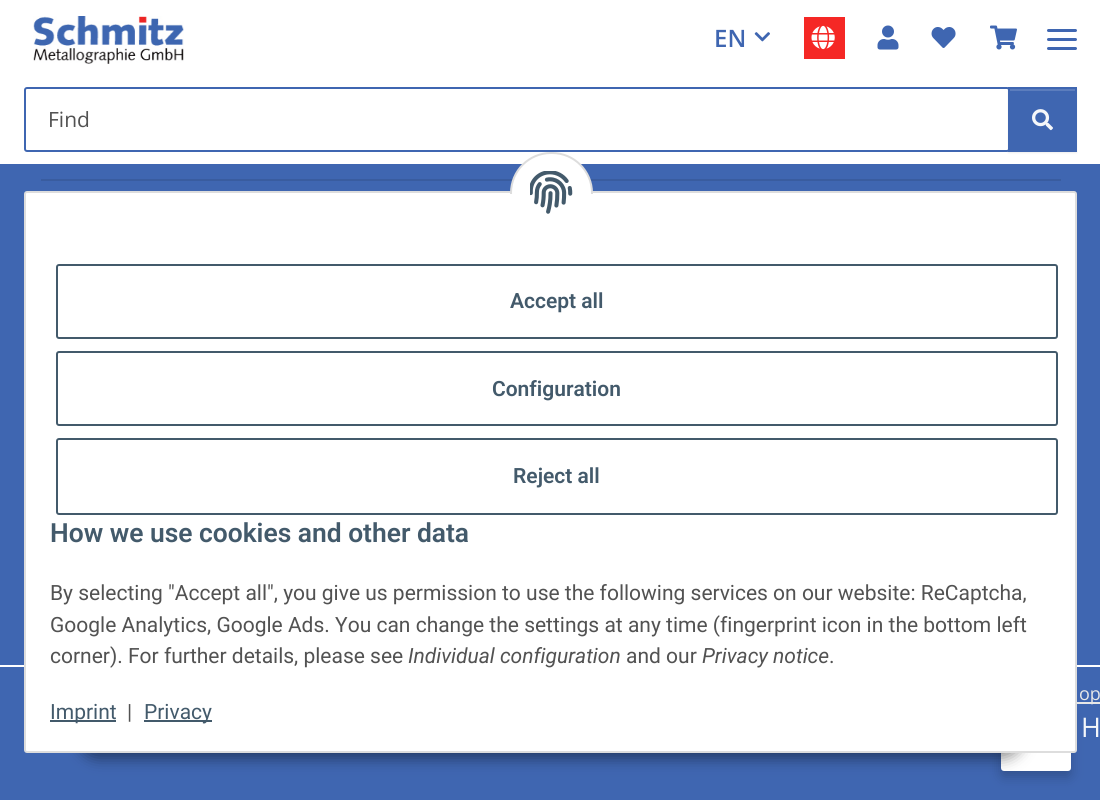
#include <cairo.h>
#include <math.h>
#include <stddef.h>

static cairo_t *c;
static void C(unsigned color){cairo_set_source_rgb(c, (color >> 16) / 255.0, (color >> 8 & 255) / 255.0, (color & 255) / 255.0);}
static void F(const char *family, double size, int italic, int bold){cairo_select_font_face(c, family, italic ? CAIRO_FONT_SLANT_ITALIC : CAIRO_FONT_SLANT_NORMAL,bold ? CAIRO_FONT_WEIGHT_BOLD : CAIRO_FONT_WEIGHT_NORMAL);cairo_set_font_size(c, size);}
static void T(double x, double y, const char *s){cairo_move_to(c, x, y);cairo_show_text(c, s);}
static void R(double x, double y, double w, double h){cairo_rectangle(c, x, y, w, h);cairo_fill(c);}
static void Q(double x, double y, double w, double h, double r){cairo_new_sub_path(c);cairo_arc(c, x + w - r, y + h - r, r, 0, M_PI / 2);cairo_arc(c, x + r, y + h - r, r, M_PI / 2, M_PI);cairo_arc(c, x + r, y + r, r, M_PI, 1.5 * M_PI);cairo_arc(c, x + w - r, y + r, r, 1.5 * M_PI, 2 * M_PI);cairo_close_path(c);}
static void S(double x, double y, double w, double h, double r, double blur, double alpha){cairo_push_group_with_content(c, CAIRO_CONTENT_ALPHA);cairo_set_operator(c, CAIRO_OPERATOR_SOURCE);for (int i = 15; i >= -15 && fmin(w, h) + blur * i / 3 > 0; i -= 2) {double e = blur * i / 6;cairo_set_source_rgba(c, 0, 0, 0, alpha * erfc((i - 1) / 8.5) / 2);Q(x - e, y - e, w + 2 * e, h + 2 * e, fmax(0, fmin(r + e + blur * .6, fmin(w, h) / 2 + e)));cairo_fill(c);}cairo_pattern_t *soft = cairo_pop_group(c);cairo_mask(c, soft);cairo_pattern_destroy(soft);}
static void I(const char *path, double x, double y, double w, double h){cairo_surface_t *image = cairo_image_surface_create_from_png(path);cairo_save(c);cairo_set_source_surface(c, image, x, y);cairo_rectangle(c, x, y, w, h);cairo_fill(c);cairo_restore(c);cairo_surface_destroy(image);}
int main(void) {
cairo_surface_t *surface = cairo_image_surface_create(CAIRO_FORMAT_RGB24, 1100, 800);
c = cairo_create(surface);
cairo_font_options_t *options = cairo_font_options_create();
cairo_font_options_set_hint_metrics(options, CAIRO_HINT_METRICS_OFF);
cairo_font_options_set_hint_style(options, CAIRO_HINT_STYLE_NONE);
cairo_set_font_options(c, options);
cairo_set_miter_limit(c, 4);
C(0x3f66b1);
cairo_paint(c);
C(0xffffff);
R(0,0,1100,164);
I("1.png",33,16,151,48);
C(0x3f66b1);
Q(1047,38,30,3,1.5);
cairo_fill(c);
Q(1047,29,30,3,1.5);
cairo_fill(c);
Q(1047,47,30,3,1.5);
cairo_fill(c);
F("Open Sans SemiBold",24,0,0);
T(714,47,"EN");
I("2.png",754,32,16,10);
C(0xf52825);
R(804,17,41,42);
I("3.png",811,25,24,25);
I("4.png",877,25,22,25);
I("5.png",931,27,25,21);
I("6.png",990,25,27,25);
Q(25,88,984,63,2);
C(0x3f66b1);
cairo_stroke(c);
F("Open Sans",21,0,0);
C(0x525252);
T(48,127,"Find");
C(0x000000);
S(1008,89,69,64,0,1,.07);
C(0x3f66b1);
R(1010,91,65,59);
C(0x5c7dbd);
R(1010,89,66,2);
cairo_rectangle(c,1009,88,67,63);
C(0x3f66b1);
cairo_stroke(c);
I("7.png",1032,109,21,22);
C(0xe7e7e7);
R(1077,702,23,2);
C(0x000000);
S(1001,711,70,66,3,6,.2);
C(0xffffff);
Q(1001,705,70,66,3);
cairo_fill(c);
C(0x000000);
S(78,710,945,48,24,7.5,.45);
C(0xffffff);
R(0,665,1100,2);
Q(25,192,1051,560,2);
cairo_fill_preserve(c);
C(0xdddddd);
cairo_stroke(c);
C(0x395c9f);
R(41,179,472,2);
R(590,179,471,2);
C(0xffffff);
Q(511,153,81,80,40);
cairo_fill_preserve(c);
C(0xdddddd);
cairo_stroke(c);
C(0xffffff);
R(510,194,83,40);
I("8.png",530,171,43,43);
Q(57,265,1000,73,2);
C(0x435a6b);
cairo_stroke(c);
F("Roboto SemiBold",21,0,0);
T(510,308,"Accept all");
Q(57,352,1000,73,2);
cairo_stroke(c);
T(492,396,"Configuration");
Q(57,439,1000,75,2);
cairo_stroke(c);
T(513,483,"Reject all");
F("Roboto SemiBold",26.4,0,0);
T(50,542,"How we use cookies and other data");
F("Roboto",21,0,0);
C(0x525252);
T(50,600,"By selecting \"Accept all\", you give us permission to use the following services on our website: ReCaptcha,");
T(50,632,"Google Analytics, Google Ads. You can change the settings at any time (fingerprint icon in the bottom left");
T(50,663,"corner). For further details, please see");
F("Roboto",21,1,0);
T(408,663,"Individual configuration");
F("Roboto",21,0,0);
T(626,663,"and our");
F("Roboto",21,1,0);
T(702,663,"Privacy notice");
F("Roboto",21,0,0);
T(829,663,".");
C(0x435a6b);
R(50,720,66,2);
T(50,719,"Imprint");
C(0x525252);
T(127,719,"|");
C(0x435a6b);
R(144,720,68,2);
T(144,719,"Privacy");
F("Open Sans",18,0,0);
C(0xe7e7e7);
T(1079,700,"op");
F("Open Sans",27,0,0);
C(0xf5f7fa);
T(1081,737,"H");
cairo_surface_write_to_png(surface, "o.png");
cairo_font_options_destroy(options);
cairo_destroy(c);
cairo_surface_destroy(surface);
return 0;
}
